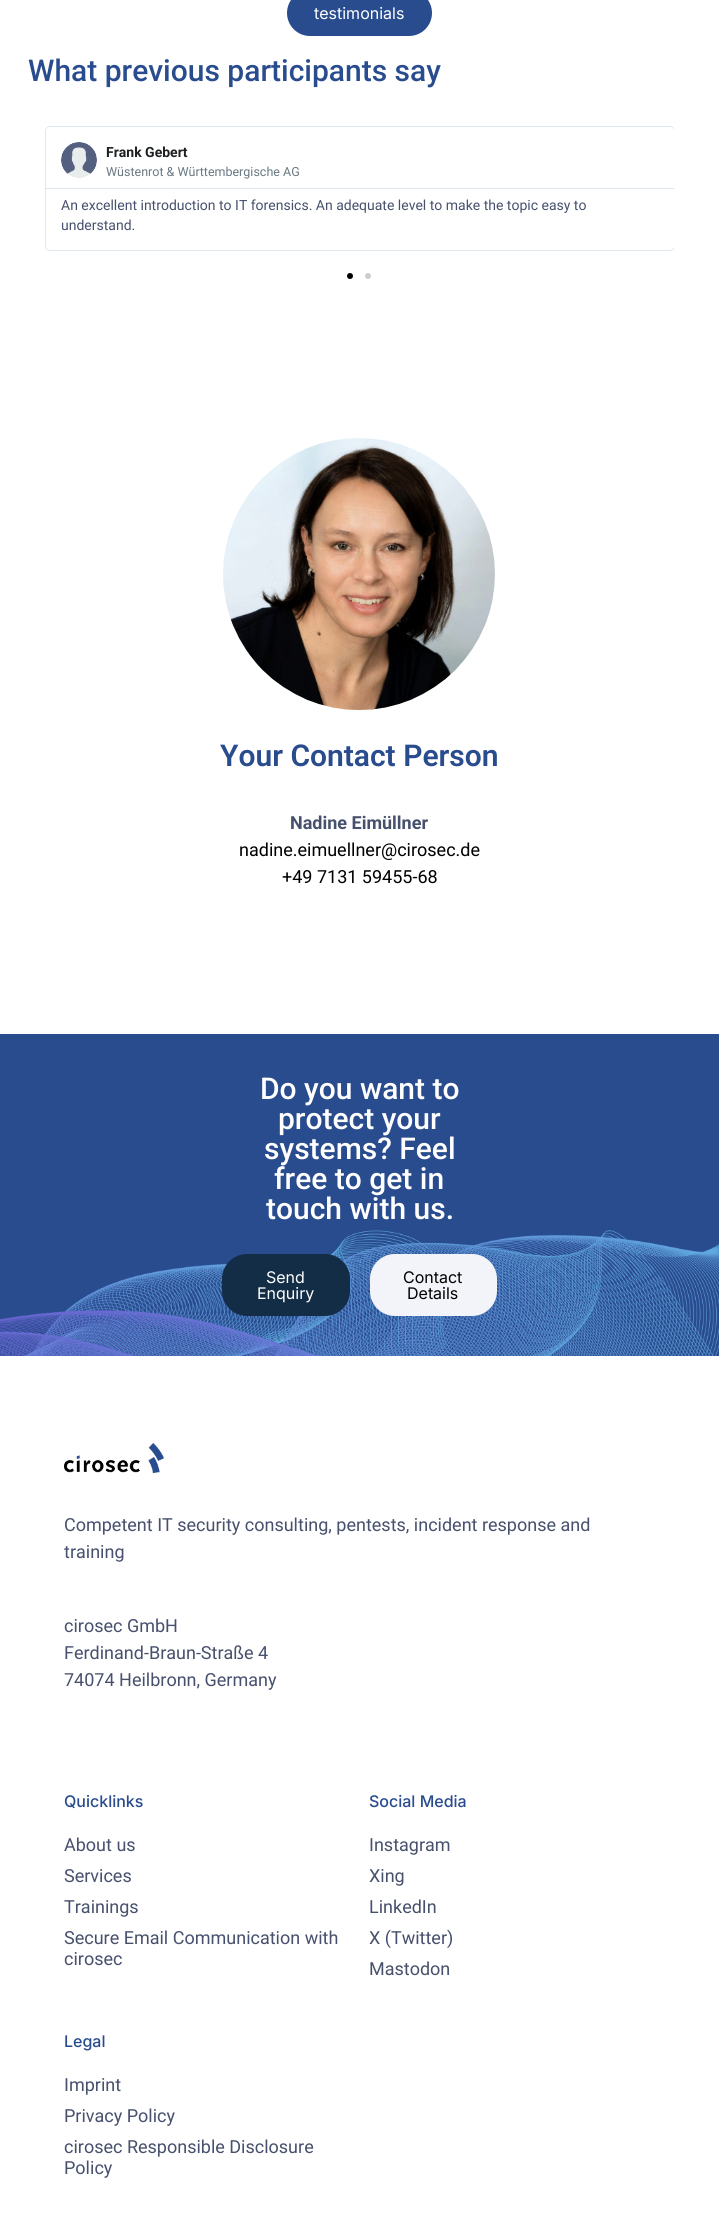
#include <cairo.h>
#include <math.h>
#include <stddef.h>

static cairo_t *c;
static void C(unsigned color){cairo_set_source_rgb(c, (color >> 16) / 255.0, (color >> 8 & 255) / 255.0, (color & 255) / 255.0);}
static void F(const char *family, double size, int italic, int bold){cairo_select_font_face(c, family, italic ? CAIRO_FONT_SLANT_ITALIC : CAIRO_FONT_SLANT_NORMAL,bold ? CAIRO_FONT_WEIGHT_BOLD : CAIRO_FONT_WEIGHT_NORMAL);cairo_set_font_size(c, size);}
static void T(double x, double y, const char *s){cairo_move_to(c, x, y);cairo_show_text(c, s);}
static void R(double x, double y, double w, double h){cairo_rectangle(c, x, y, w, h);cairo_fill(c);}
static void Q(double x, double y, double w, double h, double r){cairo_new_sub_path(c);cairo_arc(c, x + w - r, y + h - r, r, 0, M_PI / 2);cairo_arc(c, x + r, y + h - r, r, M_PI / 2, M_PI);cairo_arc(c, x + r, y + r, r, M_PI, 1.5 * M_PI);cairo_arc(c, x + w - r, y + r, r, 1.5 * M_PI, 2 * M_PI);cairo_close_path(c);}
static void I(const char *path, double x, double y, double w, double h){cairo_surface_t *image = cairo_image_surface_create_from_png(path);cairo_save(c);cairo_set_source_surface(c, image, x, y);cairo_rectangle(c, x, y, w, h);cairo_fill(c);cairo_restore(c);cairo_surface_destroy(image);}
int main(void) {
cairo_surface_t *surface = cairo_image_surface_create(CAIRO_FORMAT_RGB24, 719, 2213);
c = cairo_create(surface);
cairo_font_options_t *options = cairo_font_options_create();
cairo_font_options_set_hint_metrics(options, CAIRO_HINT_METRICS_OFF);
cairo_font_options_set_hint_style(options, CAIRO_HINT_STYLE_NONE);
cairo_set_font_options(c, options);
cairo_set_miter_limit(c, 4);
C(0xffffff);
cairo_paint(c);
C(0x294c8e);
Q(287,-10,145,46,23);
cairo_fill(c);
F("Inter",16,0,0);
C(0xffffff);
T(314,19,"testimonials");
F("Roboto Medium",30,0,0);
C(0x294c8e);
T(28,81,"What previous participants say");
cairo_save(c);
cairo_rectangle(c,45,126,629,165);
cairo_clip(c);
Q(45.5,126.5,629,124,4.5);
C(0xe1e8ed);
cairo_set_line_width(c,1);
cairo_stroke(c);
cairo_restore(c);
C(0xe1e8ed);
R(46,188,628,1);
I("1.png",61,142,36,36);
F("Roboto",14,0,1);
C(0x1c2022);
T(106,157,"Frank Gebert");
F("Roboto",12.5,0,0);
C(0x697882);
T(106,176,"Wüstenrot & Württembergische AG");
F("Roboto",14,0,0);
C(0x47506d);
T(61,210,"An excellent introduction to IT forensics. An adequate level to make the topic easy to");
T(61,230,"understand.");
C(0x000000);
cairo_new_path(c);
cairo_arc(c,350,276,3,0,2 * M_PI);
cairo_fill(c);
C(0xcccccc);
cairo_arc(c,368,276,3,0,2 * M_PI);
cairo_fill(c);
I("2.png",223,438,272,272);
F("Roboto SemiBold",30,0,0);
C(0x294c8e);
T(220,766,"Your Contact Person");
F("Roboto",18,0,1);
C(0x47506d);
T(290,829,"Nadine Eimüllner");
F("Roboto",18,0,0);
C(0x000000);
T(239,856,"nadine.eimuellner@cirosec.de");
T(282,883,"+49 7131 59455-68");
C(0x294c8e);
R(0,1034,719,322);
I("3.png",0,1230,719,126);
F("Roboto Medium",30,0,0);
C(0xffffff);
T(260,1099,"Do you want to");
T(278,1129,"protect your");
T(264,1159,"systems? Feel");
T(274,1189,"free to get in");
T(266,1219,"touch with us.");
C(0x132d47);
Q(222,1254,128,62,25);
cairo_fill(c);
F("Inter",16,0,0);
C(0xffffff);
T(266,1283,"Send");
T(257,1299,"Enquiry");
C(0xf3f4f9);
Q(370,1254,127,62,25);
cairo_fill(c);
C(0x000000);
T(403,1283,"Contact");
T(407,1299,"Details");
I("4.png",64,1443,100,30);
F("Roboto",18,0,0);
C(0x47506d);
T(64,1531,"Competent IT security consulting, pentests, incident response and");
T(64,1558,"training");
T(64,1632,"cirosec GmbH");
T(64,1659,"Ferdinand-Braun-Straße 4");
T(64,1686,"74074 Heilbronn, Germany");
F("Inter Medium",16,0,0);
C(0x294c8e);
T(64,1807,"Quicklinks");
F("Roboto",18,0,0);
C(0x47506d);
T(64,1851,"About us");
T(64,1882,"Services");
T(64,1913,"Trainings");
T(64,1944,"Secure Email Communication with");
T(64,1965,"cirosec");
F("Inter Medium",16,0,0);
C(0x294c8e);
T(369,1807,"Social Media");
F("Roboto",18,0,0);
C(0x47506d);
T(369,1851,"Instagram");
T(369,1882,"Xing");
T(369,1913,"LinkedIn");
T(369,1944,"X (Twitter)");
T(369,1975,"Mastodon");
F("Inter Medium",16,0,0);
C(0x294c8e);
T(64,2047,"Legal");
F("Roboto",18,0,0);
C(0x47506d);
T(64,2091,"Imprint");
T(64,2122,"Privacy Policy");
T(64,2153,"cirosec Responsible Disclosure");
T(64,2174,"Policy");
cairo_surface_write_to_png(surface, "o.png");
cairo_font_options_destroy(options);
cairo_destroy(c);
cairo_surface_destroy(surface);
return 0;
}
